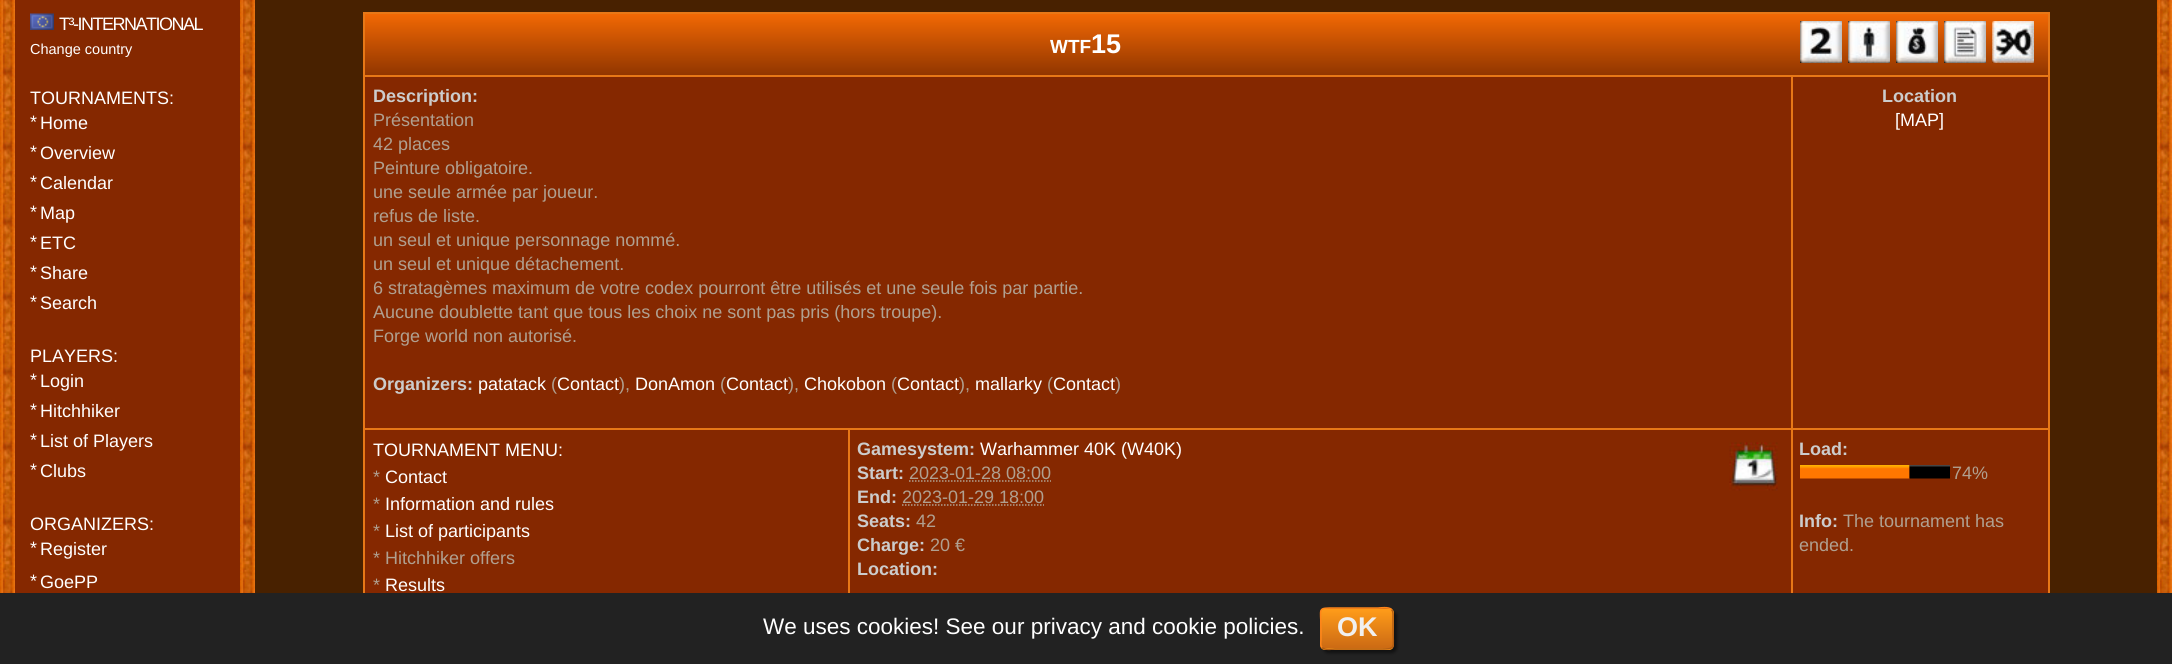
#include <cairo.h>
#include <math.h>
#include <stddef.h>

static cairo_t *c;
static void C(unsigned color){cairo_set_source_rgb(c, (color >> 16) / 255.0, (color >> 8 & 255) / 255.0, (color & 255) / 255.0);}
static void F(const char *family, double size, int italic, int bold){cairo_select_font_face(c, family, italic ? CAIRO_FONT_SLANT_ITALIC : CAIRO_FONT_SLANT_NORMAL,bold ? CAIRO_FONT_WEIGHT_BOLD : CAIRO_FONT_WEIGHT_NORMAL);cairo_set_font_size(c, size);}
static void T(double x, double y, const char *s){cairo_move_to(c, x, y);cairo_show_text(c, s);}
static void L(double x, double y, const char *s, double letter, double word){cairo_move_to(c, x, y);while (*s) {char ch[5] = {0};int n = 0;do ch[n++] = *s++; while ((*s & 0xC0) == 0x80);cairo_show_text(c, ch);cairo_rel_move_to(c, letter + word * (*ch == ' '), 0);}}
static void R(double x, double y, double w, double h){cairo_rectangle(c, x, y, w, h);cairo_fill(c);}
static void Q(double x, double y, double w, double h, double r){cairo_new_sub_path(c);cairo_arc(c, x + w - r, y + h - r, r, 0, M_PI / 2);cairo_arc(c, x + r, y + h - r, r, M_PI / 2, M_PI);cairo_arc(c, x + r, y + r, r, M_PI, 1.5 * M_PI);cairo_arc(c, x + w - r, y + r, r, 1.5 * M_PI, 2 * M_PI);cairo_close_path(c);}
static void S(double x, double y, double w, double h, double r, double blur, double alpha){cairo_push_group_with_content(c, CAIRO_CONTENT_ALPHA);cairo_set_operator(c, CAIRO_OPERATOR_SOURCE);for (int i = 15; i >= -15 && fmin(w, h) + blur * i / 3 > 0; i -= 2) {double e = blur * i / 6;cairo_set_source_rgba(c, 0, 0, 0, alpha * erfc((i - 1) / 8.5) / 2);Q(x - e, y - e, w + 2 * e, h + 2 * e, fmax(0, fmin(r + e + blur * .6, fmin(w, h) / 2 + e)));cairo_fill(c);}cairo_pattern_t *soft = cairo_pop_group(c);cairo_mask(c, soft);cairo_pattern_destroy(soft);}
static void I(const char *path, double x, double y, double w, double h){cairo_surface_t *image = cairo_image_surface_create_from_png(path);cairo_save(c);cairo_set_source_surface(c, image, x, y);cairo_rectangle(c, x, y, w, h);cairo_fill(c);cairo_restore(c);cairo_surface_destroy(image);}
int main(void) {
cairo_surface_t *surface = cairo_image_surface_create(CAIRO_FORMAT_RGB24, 2172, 664);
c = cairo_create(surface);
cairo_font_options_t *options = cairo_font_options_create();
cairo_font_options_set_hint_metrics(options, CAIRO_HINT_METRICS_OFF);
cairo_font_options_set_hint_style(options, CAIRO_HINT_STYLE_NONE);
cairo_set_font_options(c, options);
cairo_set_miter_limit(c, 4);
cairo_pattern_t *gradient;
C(0xffffff);
cairo_paint(c);
I("1.png",0,0,15,593);
C(0x852800);
R(15,0,225,593);
I("2.png",30,13,24,17);
F("Liberation Sans",18,0,0);
C(0xffffff);
L(59,30,"T³-INTERNATIONAL",-1.5,0);
F("Liberation Sans",14.5,0,0);
T(30,54,"Change country");
F("Liberation Sans",18,0,0);
T(30,104,"TOURNAMENTS:");
T(30,128,"*");
T(40,129,"Home");
T(30,158,"*");
T(40,159,"Overview");
T(30,188,"*");
T(40,189,"Calendar");
T(30,218,"*");
T(40,219,"Map");
T(30,248,"*");
T(40,249,"ETC");
T(30,278,"*");
T(40,279,"Share");
T(30,308,"*");
T(40,309,"Search");
T(30,362,"PLAYERS:");
T(30,386,"*");
T(40,387,"Login");
T(30,416,"*");
T(40,417,"Hitchhiker");
T(30,446,"*");
T(40,447,"List of Players");
T(30,476,"*");
T(40,477,"Clubs");
T(30,530,"ORGANIZERS:");
T(30,554,"*");
T(40,555,"Register");
T(30,587,"*");
T(40,588,"GoePP");
I("3.png",240,0,15,593);
C(0x482100);
R(255,0,1902,593);
C(0xe77817);
R(363,12,1686,2);
R(2048,12,2,581);
R(363,12,2,581);
gradient = cairo_pattern_create_linear(1206,13,1206,77);
cairo_pattern_add_color_stop_rgba(gradient,0,0.953,0.412,0.016,1);
cairo_pattern_add_color_stop_rgba(gradient,1,0.557,0.204,0,1);
cairo_set_source(c,gradient);
cairo_pattern_destroy(gradient);
R(365,14,1683,61);
F("Liberation Sans",19,0,1);
C(0xffffff);
T(1050,53,"WTF");
F("Liberation Sans",27,0,1);
T(1091,53,"15");
I("4.png",1800,21,42,42);
I("5.png",1848,21,42,42);
I("6.png",1896,21,42,42);
I("7.png",1944,21,42,42);
I("8.png",1992,21,42,42);
C(0x852800);
R(365,77,1426,351);
C(0xe77817);
R(1791,75,258,2);
R(1791,428,258,2);
R(1791,428,2,165);
R(848,428,945,2);
R(1791,75,2,354);
R(363,75,1430,2);
F("Liberation Sans",18,0,1);
C(0xcccccc);
T(373,102,"Description:");
F("Liberation Sans",18,0,0);
C(0xb0a090);
T(373,126,"Présentation");
T(373,150,"42 places");
T(373,174,"Peinture obligatoire.");
T(373,198,"une seule armée par joueur.");
T(373,222,"refus de liste.");
T(373,246,"un seul et unique personnage nommé.");
T(373,270,"un seul et unique détachement.");
T(373,294,"6 stratagèmes maximum de votre codex pourront être utilisés et une seule fois par partie.");
T(373,318,"Aucune doublette tant que tous les choix ne sont pas pris (hors troupe).");
T(373,342,"Forge world non autorisé.");
F("Liberation Sans",18,0,1);
C(0xcccccc);
T(373,390,"Organizers:");
F("Liberation Sans",18,0,0);
C(0xffffff);
T(478,390,"patatack");
C(0xb0a090);
T(551,390,"(");
C(0xffffff);
T(557,390,"Contact");
C(0xb0a090);
T(619,390,"),");
C(0xffffff);
T(635,390,"DonAmon");
C(0xb0a090);
T(720,390,"(");
C(0xffffff);
T(726,390,"Contact");
C(0xb0a090);
T(788,390,"),");
C(0xffffff);
T(804,390,"Chokobon");
C(0xb0a090);
T(891,390,"(");
C(0xffffff);
T(897,390,"Contact");
C(0xb0a090);
T(959,390,"),");
C(0xffffff);
T(975,390,"mallarky");
C(0xb0a090);
T(1047,390,"(");
C(0xffffff);
T(1053,390,"Contact");
C(0xb0a090);
T(1115,390,")");
C(0x852800);
R(1793,77,255,351);
F("Liberation Sans",18,0,1);
C(0xcccccc);
T(1882,102,"Location");
F("Liberation Sans",18,0,0);
C(0xffffff);
T(1895,126,"[MAP]");
C(0x852800);
R(365,430,483,163);
C(0xe77817);
R(848,428,2,165);
R(363,428,486,2);
C(0xffffff);
T(373,456,"TOURNAMENT MENU:");
C(0xb0a090);
T(373,483,"*");
C(0xffffff);
T(385,483,"Contact");
C(0xb0a090);
T(373,510,"*");
C(0xffffff);
T(385,510,"Information and rules");
C(0xb0a090);
T(373,537,"*");
C(0xffffff);
T(385,537,"List of participants");
C(0xb0a090);
T(373,564,"* Hitchhiker offers");
T(373,591,"*");
C(0xffffff);
T(385,591,"Results");
C(0x852800);
R(850,430,941,163);
F("Liberation Sans",18,0,1);
C(0xcccccc);
T(857,455,"Gamesystem:");
F("Liberation Sans",18,0,0);
C(0xffffff);
T(980,455,"Warhammer 40K (W40K)");
I("9.png",1729,442,49,49);
F("Liberation Sans",18,0,1);
C(0xcccccc);
T(857,479,"Start:");
F("Liberation Sans",18,0,0);
C(0xb0a090);
T(909,479,"2023-01-28 08:00");
cairo_new_path(c);
cairo_move_to(c,909,481);
cairo_line_to(c,1051,481);
cairo_set_line_width(c,1.5);
cairo_set_dash(c,(double[]){1.5,1.5},2,0);
cairo_stroke(c);
F("Liberation Sans",18,0,1);
C(0xcccccc);
T(857,503,"End:");
F("Liberation Sans",18,0,0);
C(0xb0a090);
T(902,503,"2023-01-29 18:00");
cairo_new_path(c);
cairo_move_to(c,902,505);
cairo_line_to(c,1044,505);
cairo_stroke(c);
F("Liberation Sans",18,0,1);
C(0xcccccc);
T(857,527,"Seats:");
F("Liberation Sans",18,0,0);
C(0xb0a090);
T(916,527,"42");
F("Liberation Sans",18,0,1);
C(0xcccccc);
T(857,551,"Charge:");
F("Liberation Sans",18,0,0);
C(0xb0a090);
T(930,551,"20 €");
F("Liberation Sans",18,0,1);
C(0xcccccc);
T(857,575,"Location:");
C(0x852800);
R(1793,430,255,163);
C(0xcccccc);
T(1799,455,"Load:");
I("10.png",1800,465,110,14);
I("11.png",1909,465,41,14);
F("Liberation Sans",18,0,0);
C(0xb0a090);
T(1952,479,"74%");
F("Liberation Sans",18,0,1);
C(0xcccccc);
T(1799,527,"Info:");
F("Liberation Sans",18,0,0);
C(0xb0a090);
T(1843,527,"The tournament has");
T(1799,551,"ended.");
I("12.png",2157,0,15,593);
C(0x222222);
R(0,593,2172,71);
F("Liberation Sans",22.5,0,0);
C(0xffffff);
T(763,634,"We uses cookies! See our privacy and cookie policies.");
C(0x000000);
S(1323,611,74,42,5,1.5,.5);
cairo_save(c);
Q(1320,608,74,42,5);
cairo_clip(c);
gradient = cairo_pattern_create_linear(1322,570,1322,609);
cairo_pattern_add_color_stop_rgba(gradient,0,1,0.612,0.098,1);
cairo_pattern_add_color_stop_rgba(gradient,1,0.8,0.416,0.078,1);
cairo_set_source(c,gradient);
cairo_pattern_destroy(gradient);
R(1320,608,74,1);
gradient = cairo_pattern_create_linear(1322,609,1322,648);
cairo_pattern_add_color_stop_rgba(gradient,0,1,0.612,0.098,1);
cairo_pattern_add_color_stop_rgba(gradient,1,0.8,0.416,0.078,1);
cairo_set_source(c,gradient);
cairo_pattern_destroy(gradient);
R(1320,609,74,39);
gradient = cairo_pattern_create_linear(1322,648,1322,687);
cairo_pattern_add_color_stop_rgba(gradient,0,1,0.612,0.098,1);
cairo_pattern_add_color_stop_rgba(gradient,1,0.8,0.416,0.078,1);
cairo_set_source(c,gradient);
cairo_pattern_destroy(gradient);
R(1320,648,74,2);
cairo_restore(c);
cairo_new_path(c);
cairo_move_to(c,1391.5,609.5);
cairo_curve_to(c,1393.5,611.5,1393,615.5,1393,617.5);
cairo_line_to(c,1393,628.5);
cairo_curve_to(c,1393,649.5,1397,649,1378,649);
cairo_line_to(c,1335,649);
cairo_curve_to(c,1334,649,1324.5,650.5,1322,647.5);
C(0xb35d12);
cairo_set_dash(c,NULL,0,0);
cairo_stroke(c);
cairo_new_path(c);
cairo_move_to(c,1322,647.5);
cairo_curve_to(c,1320,645.5,1321,641.5,1321,639.5);
cairo_line_to(c,1321,628.5);
cairo_curve_to(c,1321,607.5,1316.5,608,1335,608);
cairo_line_to(c,1378,608);
cairo_curve_to(c,1379.5,608,1389,606.5,1391.5,609.5);
C(0xff8519);
cairo_stroke(c);
F("Liberation Sans",27,0,1);
C(0xf0f0f0);
T(1337,636,"OK");
cairo_surface_write_to_png(surface, "o.png");
cairo_font_options_destroy(options);
cairo_destroy(c);
cairo_surface_destroy(surface);
return 0;
}
